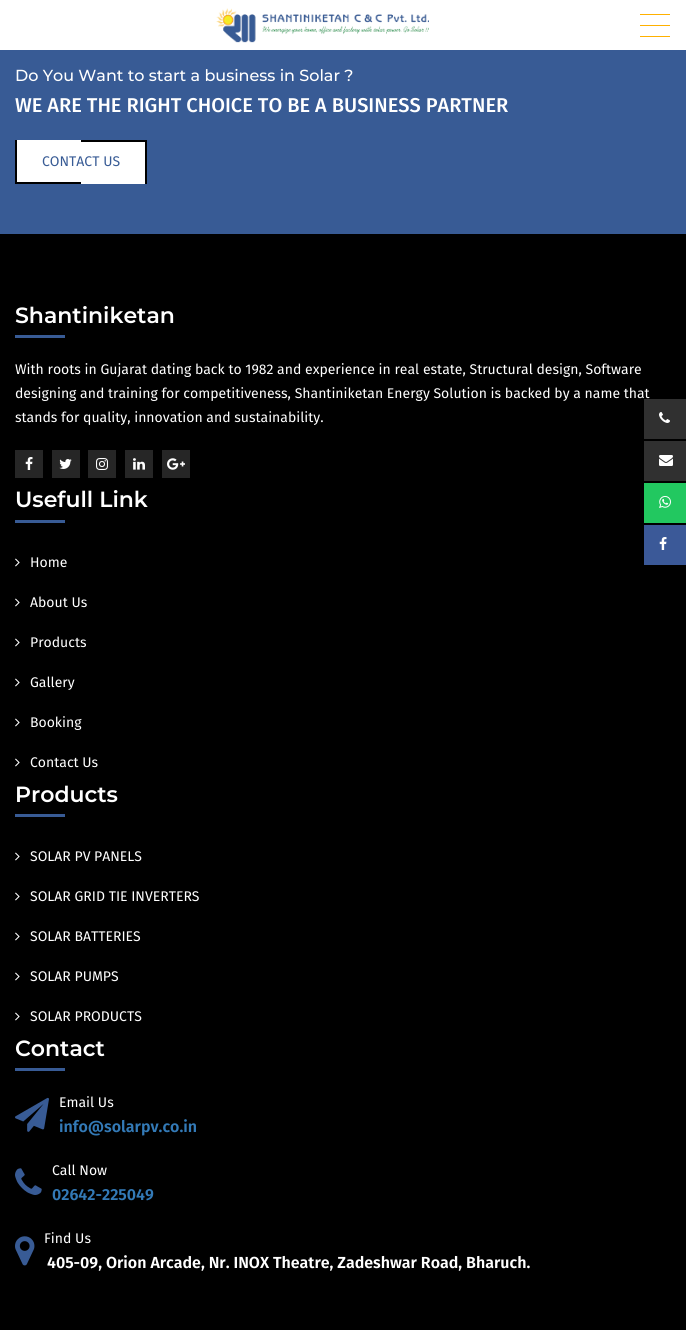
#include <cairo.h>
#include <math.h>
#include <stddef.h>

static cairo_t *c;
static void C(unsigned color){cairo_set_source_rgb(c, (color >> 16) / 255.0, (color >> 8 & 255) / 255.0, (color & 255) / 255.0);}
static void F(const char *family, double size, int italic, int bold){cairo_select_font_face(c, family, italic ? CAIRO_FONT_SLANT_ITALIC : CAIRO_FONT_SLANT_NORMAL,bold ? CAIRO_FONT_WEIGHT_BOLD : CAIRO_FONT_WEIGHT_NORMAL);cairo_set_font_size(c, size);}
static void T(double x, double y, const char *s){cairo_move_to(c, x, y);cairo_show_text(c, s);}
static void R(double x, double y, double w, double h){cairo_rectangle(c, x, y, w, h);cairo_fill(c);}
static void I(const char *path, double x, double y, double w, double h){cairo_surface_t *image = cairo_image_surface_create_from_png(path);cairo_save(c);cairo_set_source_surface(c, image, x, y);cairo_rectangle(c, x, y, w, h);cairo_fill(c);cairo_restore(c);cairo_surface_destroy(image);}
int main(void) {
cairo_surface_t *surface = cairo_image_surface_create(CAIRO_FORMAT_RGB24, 686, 1330);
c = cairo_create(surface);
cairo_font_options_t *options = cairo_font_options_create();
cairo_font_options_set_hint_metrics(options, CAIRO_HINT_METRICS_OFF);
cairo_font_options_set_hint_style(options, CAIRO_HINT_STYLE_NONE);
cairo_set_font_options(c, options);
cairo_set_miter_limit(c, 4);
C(0x000000);
cairo_paint(c);
C(0xffffff);
R(0,0,686,50);
I("1.png",216,8,213,35);
C(0xffb100);
R(640,14,30,1);
R(640,25,30,1);
R(640,36,30,1);
C(0x385b95);
R(0,50,686,184);
F("Montserrat Medium",16,0,0);
C(0xffffff);
T(15,81,"Do You Want to start a business in Solar ?");
F("Fira Sans Medium",20,0,0);
T(15,112,"WE ARE THE RIGHT CHOICE TO BE A BUSINESS PARTNER");
R(17,140,128,44);
C(0x000000);
R(145,140,2,44);
R(15,140,2,44);
R(81,140,64,2);
F("Fira Sans",14,0,0);
C(0x385b95);
T(42,166,"CONTACT US");
C(0x000000);
R(17,182,64,2);
F("Montserrat SemiBold",22,0,0);
C(0xffffff);
T(15,323,"Shantiniketan");
C(0x385b95);
R(15,335,50,3);
F("Fira Sans",14,0,0);
C(0xffffff);
T(15,374,"With roots in Gujarat dating back to 1982 and experience in real estate, Structural design, Software");
T(15,398,"designing and training for competitiveness, Shantiniketan Energy Solution is backed by a name that");
T(15,422,"stands for quality, innovation and sustainability.");
C(0x262626);
R(15,450,28,28);
I("2.png",25,457,8,13);
R(52,450,28,28);
I("3.png",59,459,13,10);
R(88,450,28,28);
I("4.png",96,458,12,12);
R(125,450,28,28);
I("5.png",133,458,12,12);
R(162,450,28,28);
I("6.png",167,458,18,12);
F("Montserrat SemiBold",22,0,0);
C(0xffffff);
T(15,507,"Usefull Link");
C(0x385b95);
R(15,520,50,3);
I("7.png",15,558,5,9);
F("Fira Sans",14,0,0);
C(0xffffff);
T(30,567,"Home");
I("7.png",15,598,5,9);
T(30,607,"About Us");
I("7.png",15,638,5,9);
T(30,647,"Products");
I("7.png",15,678,5,9);
T(30,687,"Gallery");
I("7.png",15,718,5,9);
T(30,727,"Booking");
I("7.png",15,758,5,9);
T(30,767,"Contact Us");
F("Montserrat SemiBold",22,0,0);
T(15,802,"Products");
C(0x385b95);
R(15,814,50,3);
I("7.png",15,852,5,9);
F("Fira Sans",14,0,0);
C(0xffffff);
T(30,861,"SOLAR PV PANELS");
I("7.png",15,892,5,9);
T(30,901,"SOLAR GRID TIE INVERTERS");
I("7.png",15,932,5,9);
T(30,941,"SOLAR BATTERIES");
I("7.png",15,972,5,9);
T(30,981,"SOLAR PUMPS");
I("7.png",15,1012,5,9);
T(30,1021,"SOLAR PRODUCTS");
F("Montserrat SemiBold",22,0,0);
T(15,1056,"Contact");
C(0x385b95);
R(15,1068,50,3);
I("8.png",15,1097,34,35);
F("Fira Sans",14,0,0);
C(0xffffff);
T(59,1107,"Email Us");
F("Fira Sans SemiBold",16,0,0);
C(0x337ab7);
T(59,1132,"info@solarpv.co.in");
I("9.png",15,1168,27,27);
F("Fira Sans",14,0,0);
C(0xffffff);
T(52,1175,"Call Now");
F("Fira Sans SemiBold",16,0,0);
C(0x337ab7);
T(52,1200,"02642-225049");
I("10.png",15,1236,20,30);
F("Fira Sans",14,0,0);
C(0xffffff);
T(44,1243,"Find Us");
F("Fira Sans SemiBold",16,0,0);
T(47,1268,"405-09, Orion Arcade, Nr. INOX Theatre, Zadeshwar Road, Bharuch.");
C(0x303030);
R(644,399,42,40);
I("11.png",659,412,11,11);
R(644,441,42,40);
I("12.png",659,455,14,11);
C(0x22c860);
R(644,483,42,40);
I("13.png",659,496,12,12);
C(0x3b5998);
R(644,525,42,40);
I("14.png",659,537,8,13);
cairo_surface_write_to_png(surface, "o.png");
cairo_font_options_destroy(options);
cairo_destroy(c);
cairo_surface_destroy(surface);
return 0;
}
